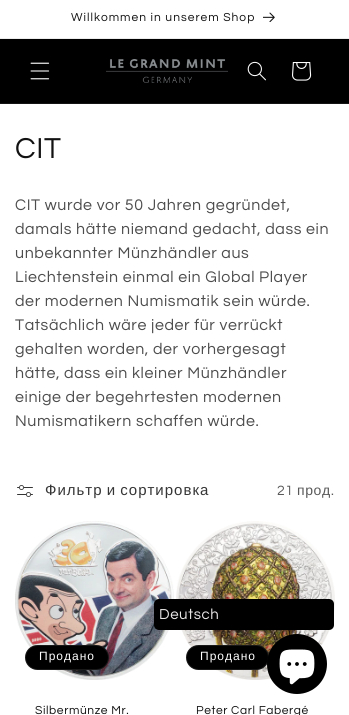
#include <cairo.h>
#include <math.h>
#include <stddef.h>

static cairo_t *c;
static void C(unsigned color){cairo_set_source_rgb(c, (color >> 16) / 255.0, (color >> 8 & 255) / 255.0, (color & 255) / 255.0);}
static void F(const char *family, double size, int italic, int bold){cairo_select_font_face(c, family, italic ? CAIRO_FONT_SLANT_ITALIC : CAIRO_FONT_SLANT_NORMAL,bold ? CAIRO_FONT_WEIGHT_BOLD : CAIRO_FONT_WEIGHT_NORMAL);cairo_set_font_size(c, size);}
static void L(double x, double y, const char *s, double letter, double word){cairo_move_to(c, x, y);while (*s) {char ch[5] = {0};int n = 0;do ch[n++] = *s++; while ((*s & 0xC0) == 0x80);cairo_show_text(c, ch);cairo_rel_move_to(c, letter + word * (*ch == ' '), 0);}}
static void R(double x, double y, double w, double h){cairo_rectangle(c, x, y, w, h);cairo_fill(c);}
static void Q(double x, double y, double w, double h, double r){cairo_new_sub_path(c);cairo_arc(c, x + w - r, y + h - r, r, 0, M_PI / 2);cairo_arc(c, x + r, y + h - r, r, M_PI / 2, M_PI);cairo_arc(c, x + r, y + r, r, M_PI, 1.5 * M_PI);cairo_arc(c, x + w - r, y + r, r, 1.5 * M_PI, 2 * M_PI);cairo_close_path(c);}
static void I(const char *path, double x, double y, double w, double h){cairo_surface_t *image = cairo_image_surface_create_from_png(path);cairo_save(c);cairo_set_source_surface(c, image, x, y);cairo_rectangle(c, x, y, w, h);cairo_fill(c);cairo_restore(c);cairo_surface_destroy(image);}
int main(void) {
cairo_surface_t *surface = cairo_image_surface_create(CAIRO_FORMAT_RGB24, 349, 715);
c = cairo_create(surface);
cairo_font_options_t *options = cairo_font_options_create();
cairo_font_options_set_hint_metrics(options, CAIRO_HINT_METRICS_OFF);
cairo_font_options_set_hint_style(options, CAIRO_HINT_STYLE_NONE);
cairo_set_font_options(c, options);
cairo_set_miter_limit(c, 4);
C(0xffffff);
cairo_paint(c);
C(0xececec);
R(0,38,349,1);
F("Questrial",12,0,0);
C(0x121212);
L(71,21,"Willkommen in unserem Shop",1,0);
I("1.png",263,12,12,10);
C(0x000000);
R(0,39,349,64);
C(0x141414);
R(0,103,349,1);
I("2.png",30,62,20,18);
I("3.png",106,59,122,24);
I("4.png",247,61,19,20);
I("5.png",292,62,20,19);
F("Questrial",30,0,0);
C(0x121212);
L(15,158,"CIT",.6,0);
F("Questrial",16,0,0);
C(0x4d4d4d);
L(15,210,"CIT wurde vor 50 Jahren gegründet,",.6,0);
L(15,234,"damals hätte niemand gedacht, dass ein",.6,0);
L(15,258,"unbekannter Münzhändler aus",.6,0);
L(15,282,"Liechtenstein einmal ein Global Player",.6,0);
L(15,306,"der modernen Numismatik sein würde.",.6,0);
L(15,330,"Tatsächlich wäre jeder für verrückt",.6,0);
L(15,354,"gehalten worden, der vorhergesagt",.6,0);
L(15,378,"hätte, dass ein kleiner Münzhändler",.6,0);
L(15,402,"einige der begehrtesten modernen",.6,0);
L(15,426,"Numismatikern schaffen würde.",.6,0);
I("6.png",17,485,16,12);
F("Liberation Sans",15,0,0);
C(0x363636);
L(45,495,"Фильтр и сортировка",1,-1);
F("Questrial",14,0,0);
C(0x595959);
L(277,495,"21",.6,0);
F("Liberation Sans",14,0,0);
L(297,495,"прод",.6,0);
F("Questrial",14,0,0);
L(331,495,".",.6,0);
I("7.png",15,521,159,159);
C(0x000000);
Q(25,645,84,25,12.5);
cairo_fill(c);
Q(25.5,645.5,83,24,12);
cairo_set_source_rgba(c,1,1,1,0.1);
cairo_set_line_width(c,1);
cairo_stroke(c);
F("Liberation Sans",12,0,0);
C(0xffffff);
L(39,660,"Продано",1,0);
F("Questrial",12,0,0);
C(0x121212);
L(35,714,"Silbermünze Mr.",.6,0);
I("8.png",176,521,159,159);
C(0x000000);
Q(186,645,83,25,12.5);
cairo_fill(c);
Q(186.5,645.5,82,24,12);
cairo_set_source_rgba(c,1,1,1,0.1);
cairo_stroke(c);
F("Liberation Sans",12,0,0);
C(0xffffff);
L(200,660,"Продано",1,0);
F("Questrial",12,0,0);
C(0x121212);
L(196,714,"Peter Carl Fabergé",.6,0);
C(0x000000);
Q(154,599,180,31,5);
cairo_fill(c);
F("Questrial",15,0,0);
C(0xebe8e8);
L(159,619,"Deutsch",.6,0);
C(0x000000);
cairo_new_path(c);
cairo_arc(c,297,664,30,0,2 * M_PI);
cairo_fill(c);
I("9.png",279,649,36,36);
cairo_surface_write_to_png(surface, "o.png");
cairo_font_options_destroy(options);
cairo_destroy(c);
cairo_surface_destroy(surface);
return 0;
}
